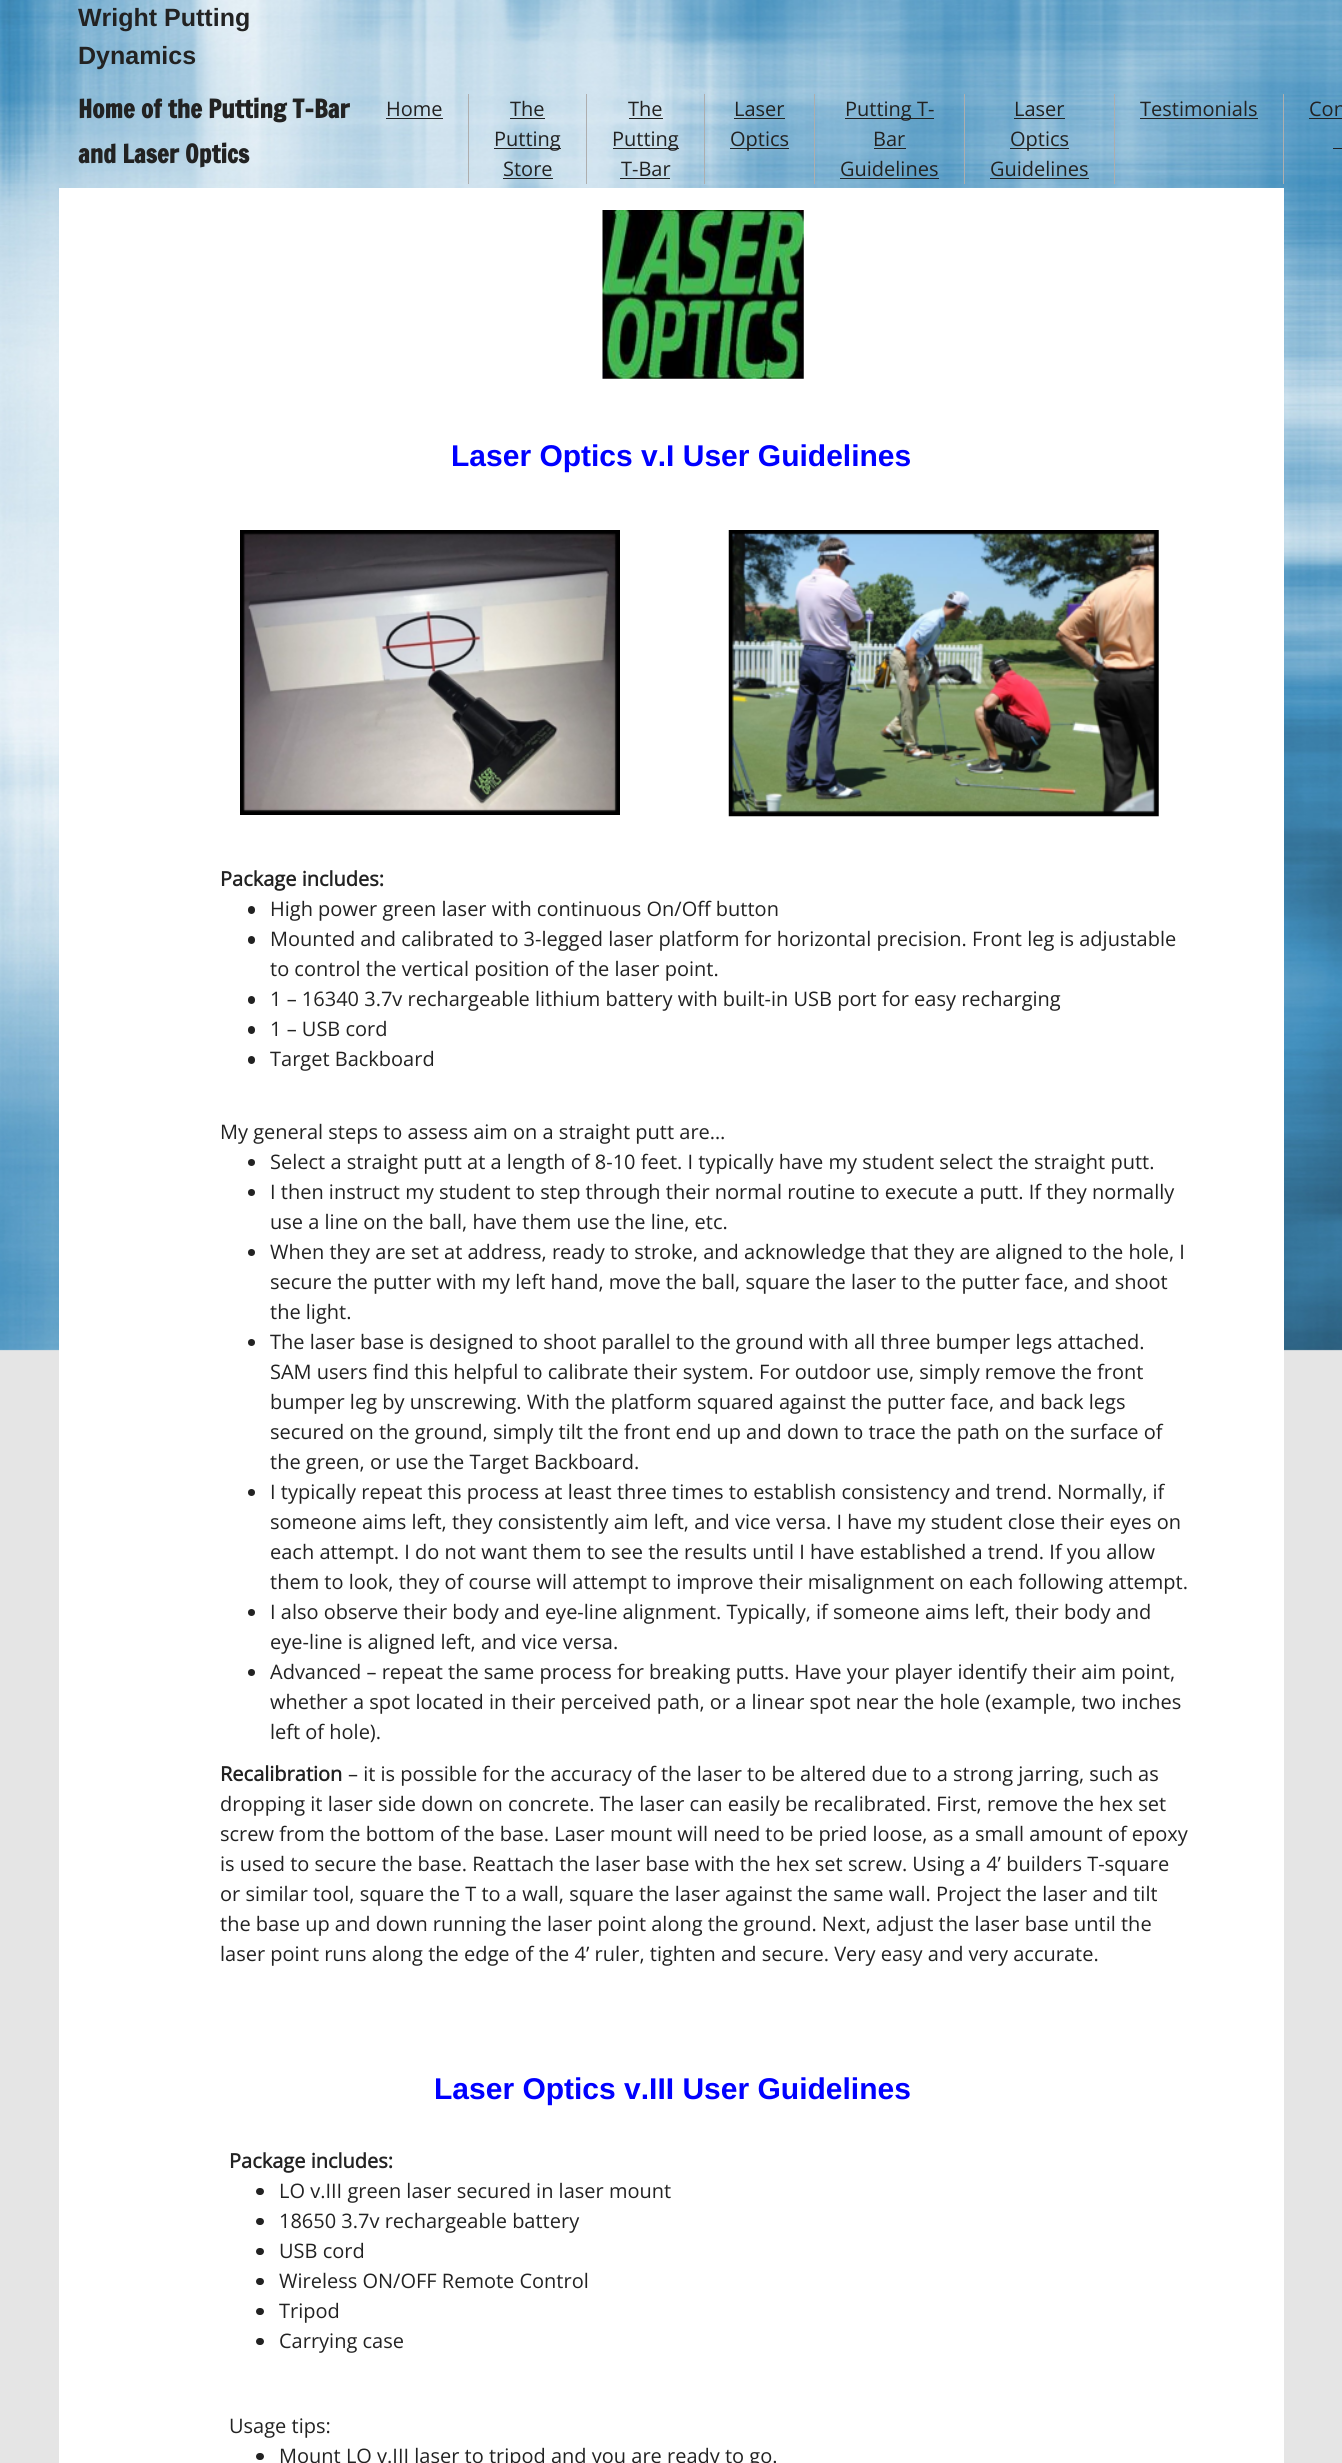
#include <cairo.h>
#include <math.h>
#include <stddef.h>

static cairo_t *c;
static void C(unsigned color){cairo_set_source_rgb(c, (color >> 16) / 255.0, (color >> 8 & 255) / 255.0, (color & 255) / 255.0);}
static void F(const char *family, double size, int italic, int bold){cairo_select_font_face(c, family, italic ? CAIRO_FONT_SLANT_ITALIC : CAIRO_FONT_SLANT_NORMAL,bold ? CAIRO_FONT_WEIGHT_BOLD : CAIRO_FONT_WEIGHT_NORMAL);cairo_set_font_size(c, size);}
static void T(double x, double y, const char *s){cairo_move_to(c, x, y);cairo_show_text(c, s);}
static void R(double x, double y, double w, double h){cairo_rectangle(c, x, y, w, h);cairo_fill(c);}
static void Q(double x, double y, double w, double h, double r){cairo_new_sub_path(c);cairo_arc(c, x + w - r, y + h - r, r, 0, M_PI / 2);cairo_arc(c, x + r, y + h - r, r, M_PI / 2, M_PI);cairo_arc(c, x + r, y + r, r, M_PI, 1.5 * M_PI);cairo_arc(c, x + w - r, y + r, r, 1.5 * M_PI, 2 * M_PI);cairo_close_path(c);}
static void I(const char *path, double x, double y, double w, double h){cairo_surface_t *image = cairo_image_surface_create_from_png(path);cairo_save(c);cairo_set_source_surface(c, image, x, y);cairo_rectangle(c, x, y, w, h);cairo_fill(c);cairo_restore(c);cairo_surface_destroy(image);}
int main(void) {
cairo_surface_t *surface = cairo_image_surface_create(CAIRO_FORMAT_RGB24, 1342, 2463);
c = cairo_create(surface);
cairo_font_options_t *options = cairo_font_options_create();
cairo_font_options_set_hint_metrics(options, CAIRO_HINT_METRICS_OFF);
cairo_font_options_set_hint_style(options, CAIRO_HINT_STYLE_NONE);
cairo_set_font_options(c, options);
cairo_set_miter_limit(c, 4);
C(0xe5e5e5);
cairo_paint(c);
I("1.png",0,0,1342,1351);
C(0xffffff);
R(59,188,1225,2275);
F("Liberation Sans",25,0,1);
C(0x222222);
T(78,26,"Wright Putting");
T(78,64,"Dynamics");
F("Francois One",25,0,1);
T(78,118,"Home of the Putting T-Bar");
T(78,163,"and Laser Optics");
C(0xaeaeae);
R(468,94,1,90);
F("Open Sans",20,0,0);
C(0x222222);
T(386,116,"Home");
R(386,118,57,1);
C(0xaeaeae);
R(586,94,1,90);
C(0x222222);
T(510,116,"The");
R(510,118,35,1);
R(494,148,67,1);
T(494,146,"Putting");
T(503,176,"Store");
R(503,178,50,1);
C(0xaeaeae);
R(704,94,1,90);
C(0x222222);
T(628,116,"The");
R(629,118,34,1);
R(613,148,66,1);
T(612,146,"Putting");
T(621,176,"T-Bar");
R(620,178,50,1);
C(0xaeaeae);
R(814,94,1,90);
C(0x222222);
T(734,116,"Laser");
R(734,118,51,1);
R(730,148,59,1);
T(730,146,"Optics");
C(0xaeaeae);
R(964,94,1,90);
C(0x222222);
R(845,118,89,1);
T(845,116,"Putting T-");
T(873,146,"Bar");
R(874,148,32,1);
T(840,176,"Guidelines");
R(840,178,99,1);
C(0xaeaeae);
R(1114,94,1,90);
C(0x222222);
T(1014,116,"Laser");
R(1014,118,51,1);
R(1010,148,59,1);
T(1010,146,"Optics");
T(990,176,"Guidelines");
R(990,178,99,1);
C(0xaeaeae);
R(1283,94,1,90);
C(0x222222);
T(1140,116,"Testimonials");
R(1140,118,118,1);
T(1309,116,"Con");
R(1309,118,33,1);
R(1333,148,9,1);
I("2.png",602,210,202,169);
F("Liberation Sans",30,0,1);
C(0x0000ff);
T(451,466,"Laser Optics v.I User Guidelines");
I("3.png",240,530,380,285);
I("4.png",728,530,431,287);
F("Open Sans",20,0,1);
C(0x222222);
T(220,886,"Package includes:");
Q(248,906,7,8,3.5);
cairo_fill(c);
F("Open Sans",20,0,0);
T(270,916,"High power green laser with continuous On/Off button");
Q(248,936,7,8,3.5);
cairo_fill(c);
T(270,946,"Mounted and calibrated to 3-legged laser platform for horizontal precision. Front leg is adjustable");
T(270,976,"to control the vertical position of the laser point.");
Q(248,996,7,8,3.5);
cairo_fill(c);
T(270,1006,"1 – 16340 3.7v rechargeable lithium battery with built-in USB port for easy recharging");
Q(248,1026,7,8,3.5);
cairo_fill(c);
T(270,1036,"1 – USB cord");
Q(248,1056,7,8,3.5);
cairo_fill(c);
T(270,1066,"Target Backboard");
T(220,1139,"My general steps to assess aim on a straight putt are…");
cairo_new_path(c);
cairo_arc(c,251.5,1162.5,3.5,0,2 * M_PI);
cairo_fill(c);
T(270,1169,"Select a straight putt at a length of 8-10 feet. I typically have my student select the straight putt.");
cairo_new_path(c);
cairo_arc(c,251.5,1192.5,3.5,0,2 * M_PI);
cairo_fill(c);
T(270,1199,"I then instruct my student to step through their normal routine to execute a putt. If they normally");
T(270,1229,"use a line on the ball, have them use the line, etc.");
cairo_new_path(c);
cairo_arc(c,251.5,1252.5,3.5,0,2 * M_PI);
cairo_fill(c);
T(270,1259,"When they are set at address, ready to stroke, and acknowledge that they are aligned to the hole, I");
T(270,1289,"secure the putter with my left hand, move the ball, square the laser to the putter face, and shoot");
T(270,1319,"the light.");
cairo_new_path(c);
cairo_arc(c,251.5,1342.5,3.5,0,2 * M_PI);
cairo_fill(c);
T(270,1349,"The laser base is designed to shoot parallel to the ground with all three bumper legs attached.");
T(270,1379,"SAM users find this helpful to calibrate their system. For outdoor use, simply remove the front");
T(270,1409,"bumper leg by unscrewing. With the platform squared against the putter face, and back legs");
T(270,1439,"secured on the ground, simply tilt the front end up and down to trace the path on the surface of");
T(270,1469,"the green, or use the Target Backboard.");
cairo_new_path(c);
cairo_arc(c,251.5,1492.5,3.5,0,2 * M_PI);
cairo_fill(c);
T(270,1499,"I typically repeat this process at least three times to establish consistency and trend. Normally, if");
T(270,1529,"someone aims left, they consistently aim left, and vice versa. I have my student close their eyes on");
T(270,1559,"each attempt. I do not want them to see the results until I have established a trend. If you allow");
T(270,1589,"them to look, they of course will attempt to improve their misalignment on each following attempt.");
cairo_new_path(c);
cairo_arc(c,251.5,1612.5,3.5,0,2 * M_PI);
cairo_fill(c);
T(270,1619,"I also observe their body and eye-line alignment. Typically, if someone aims left, their body and");
T(270,1649,"eye-line is aligned left, and vice versa.");
cairo_new_path(c);
cairo_arc(c,251.5,1672.5,3.5,0,2 * M_PI);
cairo_fill(c);
T(270,1679,"Advanced – repeat the same process for breaking putts. Have your player identify their aim point,");
T(270,1709,"whether a spot located in their perceived path, or a linear spot near the hole (example, two inches");
T(270,1739,"left of hole).");
F("Open Sans",20,0,1);
T(220,1781,"Recalibration");
F("Open Sans",20,0,0);
T(348,1781,"– it is possible for the accuracy of the laser to be altered due to a strong jarring, such as");
T(220,1811,"dropping it laser side down on concrete. The laser can easily be recalibrated. First, remove the hex set");
T(220,1841,"screw from the bottom of the base. Laser mount will need to be pried loose, as a small amount of epoxy");
T(220,1871,"is used to secure the base. Reattach the laser base with the hex set screw. Using a 4’ builders T-square");
T(220,1901,"or similar tool, square the T to a wall, square the laser against the same wall. Project the laser and tilt");
T(220,1931,"the base up and down running the laser point along the ground. Next, adjust the laser base until the");
T(220,1961,"laser point runs along the edge of the 4’ ruler, tighten and secure. Very easy and very accurate.");
F("Liberation Sans",30,0,1);
C(0x0000ff);
T(434,2099,"Laser Optics v.III User Guidelines");
F("Open Sans",20,0,1);
C(0x222222);
T(229,2168,"Package includes:");
Q(256,2188,8,7,3.5);
cairo_fill(c);
F("Open Sans",20,0,0);
T(279,2198,"LO v.III green laser secured in laser mount");
Q(256,2218,8,7,3.5);
cairo_fill(c);
T(279,2228,"18650 3.7v rechargeable battery");
Q(256,2248,8,7,3.5);
cairo_fill(c);
T(279,2258,"USB cord");
Q(256,2278,8,7,3.5);
cairo_fill(c);
T(279,2288,"Wireless ON/OFF Remote Control");
Q(256,2308,8,7,3.5);
cairo_fill(c);
T(279,2318,"Tripod");
Q(256,2338,8,7,3.5);
cairo_fill(c);
T(279,2348,"Carrying case");
T(229,2433,"Usage tips:");
Q(256,2453,8,7,3.5);
cairo_fill(c);
T(279,2463,"Mount LO v.III laser to tripod and you are ready to go.");
cairo_surface_write_to_png(surface, "o.png");
cairo_font_options_destroy(options);
cairo_destroy(c);
cairo_surface_destroy(surface);
return 0;
}
